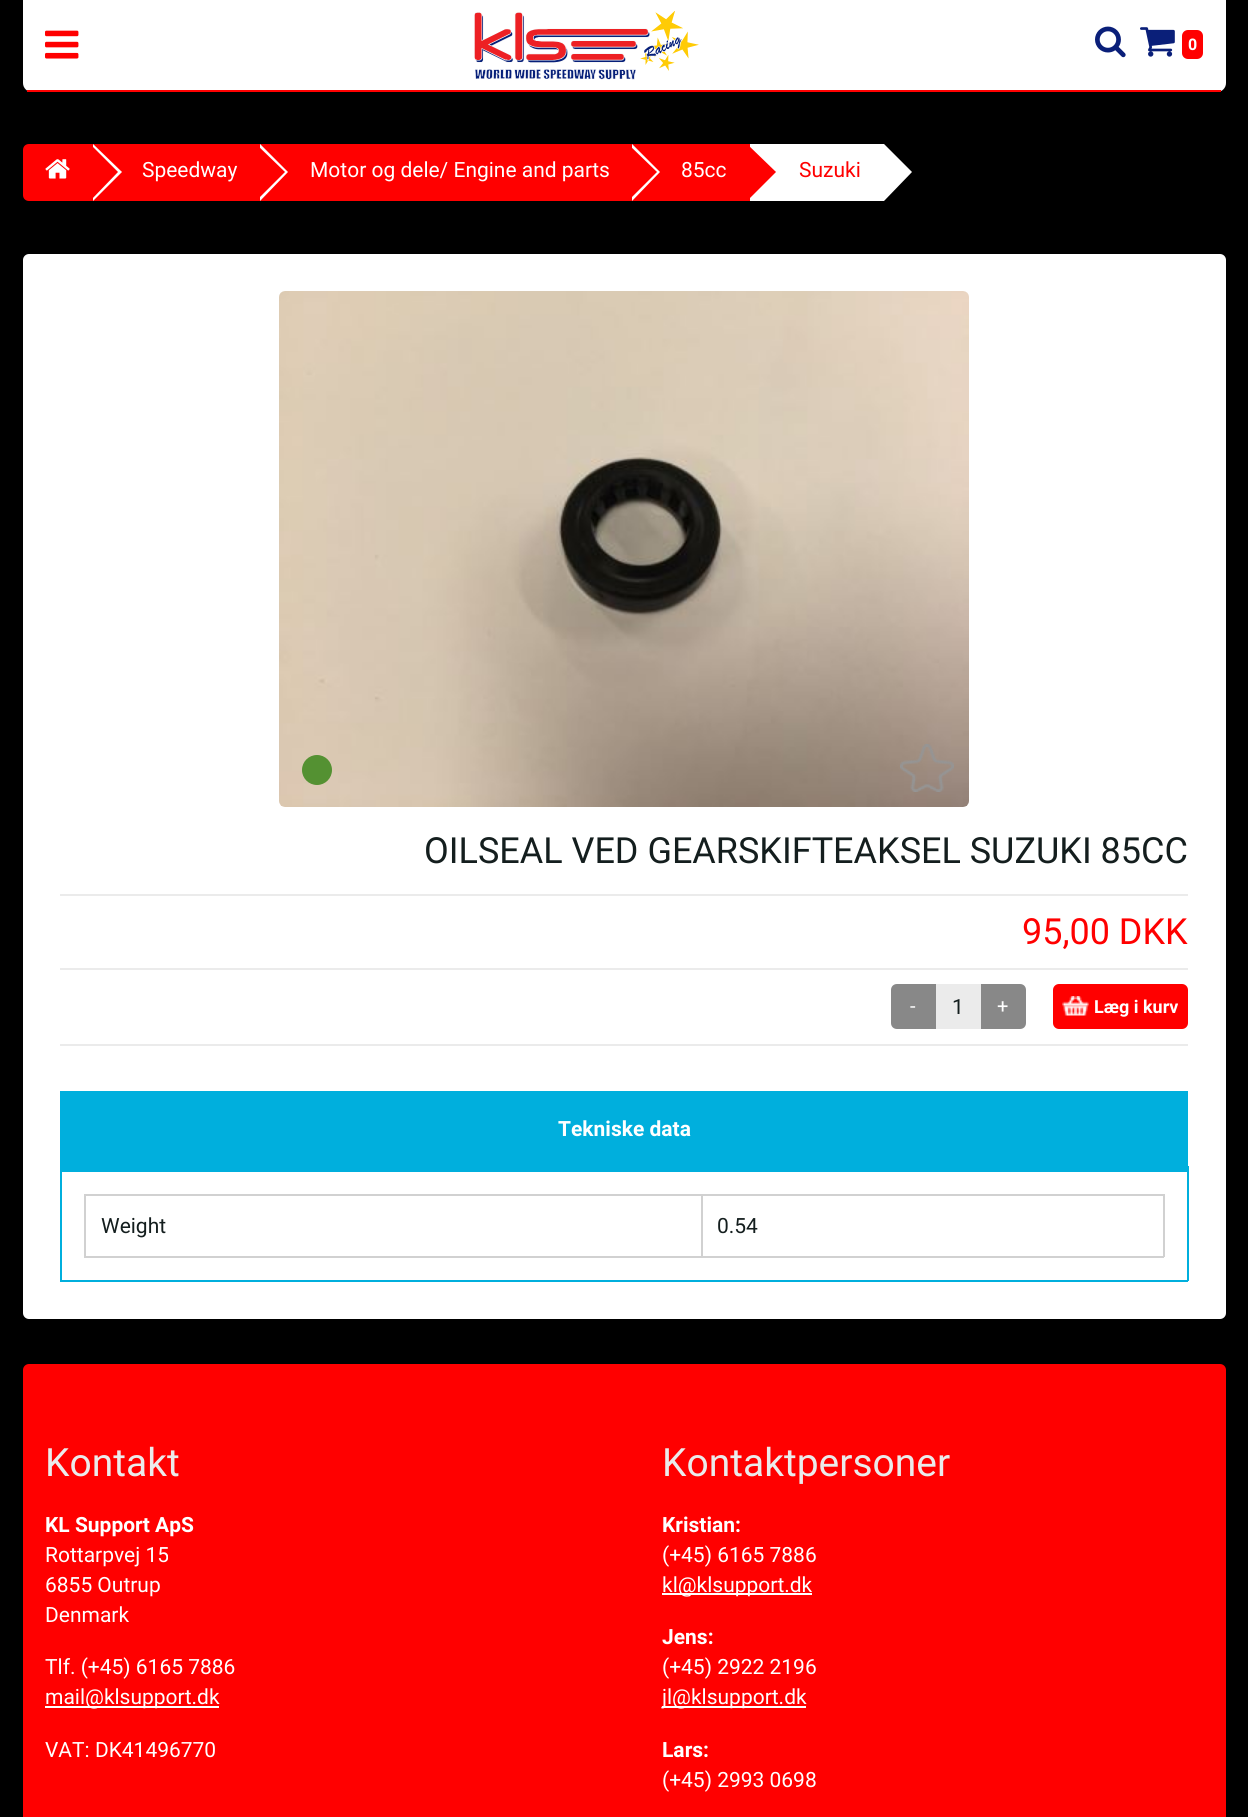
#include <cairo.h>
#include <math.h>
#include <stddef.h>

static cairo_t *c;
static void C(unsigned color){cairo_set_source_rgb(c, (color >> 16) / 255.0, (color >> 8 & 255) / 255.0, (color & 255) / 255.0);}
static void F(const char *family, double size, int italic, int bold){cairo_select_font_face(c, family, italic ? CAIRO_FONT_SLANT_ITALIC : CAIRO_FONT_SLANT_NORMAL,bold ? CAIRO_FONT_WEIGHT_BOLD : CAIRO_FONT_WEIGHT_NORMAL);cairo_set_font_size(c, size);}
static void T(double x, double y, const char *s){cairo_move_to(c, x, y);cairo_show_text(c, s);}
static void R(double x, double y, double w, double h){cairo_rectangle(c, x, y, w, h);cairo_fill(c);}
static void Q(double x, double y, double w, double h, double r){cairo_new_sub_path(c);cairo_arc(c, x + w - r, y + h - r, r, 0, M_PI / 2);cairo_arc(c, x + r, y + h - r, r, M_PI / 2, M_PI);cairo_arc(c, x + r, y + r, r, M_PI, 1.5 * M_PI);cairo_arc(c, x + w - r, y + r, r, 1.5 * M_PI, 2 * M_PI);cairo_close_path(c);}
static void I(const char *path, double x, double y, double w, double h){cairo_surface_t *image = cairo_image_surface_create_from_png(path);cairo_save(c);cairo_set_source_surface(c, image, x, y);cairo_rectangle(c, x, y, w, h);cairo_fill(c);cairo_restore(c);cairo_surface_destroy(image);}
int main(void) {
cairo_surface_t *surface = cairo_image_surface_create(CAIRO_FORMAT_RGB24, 1248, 1817);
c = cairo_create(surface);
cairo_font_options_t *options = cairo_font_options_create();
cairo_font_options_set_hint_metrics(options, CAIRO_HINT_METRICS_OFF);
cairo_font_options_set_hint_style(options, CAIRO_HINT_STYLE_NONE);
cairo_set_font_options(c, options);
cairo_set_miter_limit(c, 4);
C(0x000000);
cairo_paint(c);
C(0xffffff);
cairo_new_path(c);
cairo_move_to(c,23,0);
cairo_line_to(c,1226,0);
cairo_line_to(c,1226,83);
cairo_curve_to(c,1226,88,1222,92,1217,92);
cairo_line_to(c,32,92);
cairo_curve_to(c,27,92,23,88,23,83);
cairo_close_path(c);
cairo_fill(c);
C(0xff0000);
R(27,90,1194,2);
I("1.png",45,30,34,29);
I("2.png",474,11,225,69);
I("3.png",1095,26,31,32);
I("4.png",1140,27,35,30);
Q(1182,30,21,29,6);
cairo_fill(c);
F("Roboto",16,0,1);
C(0xffffff);
T(1188,50,"0");
C(0xff0000);
cairo_new_path(c);
cairo_move_to(c,29,144);
cairo_line_to(c,93,144);
cairo_line_to(c,93,201);
cairo_line_to(c,29,201);
cairo_curve_to(c,25.5,201,23,198.5,23,195);
cairo_line_to(c,23,150);
cairo_curve_to(c,23,146.5,25.5,144,29,144);
cairo_close_path(c);
cairo_fill(c);
R(93,144,657,57);
C(0xffffff);
cairo_new_path(c);
cairo_move_to(c,93,201);
cairo_line_to(c,93,144);
cairo_line_to(c,122,172);
cairo_close_path(c);
cairo_fill(c);
C(0xff0000);
cairo_new_path(c);
cairo_move_to(c,90,201);
cairo_line_to(c,90,144);
cairo_line_to(c,118,172);
cairo_close_path(c);
cairo_fill(c);
I("5.png",45,159,25,20);
C(0xffffff);
cairo_new_path(c);
cairo_move_to(c,260,201);
cairo_line_to(c,260,144);
cairo_line_to(c,288,172);
cairo_close_path(c);
cairo_fill(c);
C(0xff0000);
cairo_new_path(c);
cairo_move_to(c,256,201);
cairo_line_to(c,256,144);
cairo_line_to(c,285,172);
cairo_close_path(c);
cairo_fill(c);
F("Roboto",21,0,0);
C(0xffffff);
T(142,177,"Speedway");
cairo_new_path(c);
cairo_move_to(c,632,201);
cairo_line_to(c,632,144);
cairo_line_to(c,660,172);
cairo_close_path(c);
cairo_fill(c);
C(0xff0000);
cairo_new_path(c);
cairo_move_to(c,628,201);
cairo_line_to(c,628,144);
cairo_line_to(c,657,172);
cairo_close_path(c);
cairo_fill(c);
C(0xffffff);
T(310,177,"Motor og dele/ Engine and parts");
T(681,177,"85cc");
R(750,144,134,57);
C(0xff0000);
cairo_new_path(c);
cairo_move_to(c,747,201);
cairo_line_to(c,747,144);
cairo_line_to(c,776,172);
cairo_close_path(c);
cairo_fill(c);
T(799,177,"Suzuki");
C(0xffffff);
cairo_new_path(c);
cairo_move_to(c,884,201);
cairo_line_to(c,884,144);
cairo_line_to(c,912,172);
cairo_close_path(c);
cairo_fill(c);
Q(23,254,1203,1065,6);
cairo_fill(c);
I("6.png",279,291,690,516);
C(0x549132);
cairo_arc(c,317,770,15,0,2 * M_PI);
cairo_fill(c);
I("7.png",900,744,54,48);
F("Roboto",36,0,0);
C(0x141e1e);
T(424,863,"OILSEAL VED GEARSKIFTEAKSEL SUZUKI 85CC");
C(0xebebeb);
R(60,894,1128,2);
R(60,1044,1128,2);
R(60,968,1128,2);
C(0xff0000);
T(1022,944,"95,00 DKK");
C(0x888888);
cairo_new_path(c);
cairo_move_to(c,897,984);
cairo_line_to(c,936,984);
cairo_line_to(c,936,1029);
cairo_line_to(c,897,1029);
cairo_curve_to(c,893.5,1029,891,1026.5,891,1023);
cairo_line_to(c,891,990);
cairo_curve_to(c,891,986.5,893.5,984,897,984);
cairo_close_path(c);
cairo_fill(c);
F("Roboto",20,0,0);
C(0xffffff);
T(910,1013,"-");
C(0xebebeb);
R(936,984,45,45);
F("Roboto",21,0,0);
C(0x141e1e);
T(952,1014,"1");
C(0x888888);
cairo_new_path(c);
cairo_move_to(c,981,984);
cairo_line_to(c,1020,984);
cairo_curve_to(c,1023.5,984,1026,986.5,1026,990);
cairo_line_to(c,1026,1023);
cairo_curve_to(c,1026,1026.5,1023.5,1029,1020,1029);
cairo_line_to(c,981,1029);
cairo_close_path(c);
cairo_fill(c);
F("Roboto",20,0,0);
C(0xffffff);
T(997,1013,"+");
C(0xff0000);
Q(1053,984,135,45,6);
cairo_fill(c);
I("8.png",1062,996,27,20);
F("Roboto",18,0,1);
C(0xffffff);
T(1094,1013,"Læg i kurv");
C(0x00afdd);
R(60,1091,1128,81);
F("Roboto",21,0,1);
C(0xffffff);
T(558,1136,"Tekniske data");
C(0x00afdd);
R(1187,1166,2,115);
R(60,1280,1128,2);
R(60,1166,2,115);
C(0xd1d1d1);
R(701,1194,463,2);
R(1163,1194,2,63);
R(701,1256,463,2);
R(701,1194,2,63);
R(84,1194,618,2);
R(84,1256,618,2);
R(84,1194,2,63);
F("Roboto",21,0,0);
C(0x141e1e);
T(101,1233,"Weight");
T(717,1233,"0.54");
C(0xff0000);
Q(23,1364,1203,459,6);
cairo_fill(c);
F("Roboto",39,0,0);
C(0xebebeb);
T(45,1476,"Kontakt");
F("Roboto",21,0,1);
C(0xffffff);
T(45,1532,"KL Support ApS");
F("Roboto",21,0,0);
T(45,1562,"Rottarpvej 15");
T(45,1592,"6855 Outrup");
T(45,1622,"Denmark");
T(45,1674,"Tlf. (+45) 6165 7886");
R(45,1706,174,2);
T(45,1704,"mail@klsupport.dk");
T(45,1757,"VAT: DK41496770");
F("Roboto",39,0,0);
C(0xebebeb);
T(662,1476,"Kontaktpersoner");
F("Roboto",21,0,1);
C(0xffffff);
T(662,1532,"Kristian:");
F("Roboto",21,0,0);
T(662,1562,"(+45) 6165 7886");
R(662,1593,150,2);
T(662,1592,"kl@klsupport.dk");
F("Roboto",21,0,1);
T(662,1644,"Jens:");
F("Roboto",21,0,0);
T(662,1674,"(+45) 2922 2196");
R(662,1706,144,2);
T(662,1704,"jl@klsupport.dk");
F("Roboto",21,0,1);
T(662,1757,"Lars:");
F("Roboto",21,0,0);
T(662,1787,"(+45) 2993 0698");
cairo_surface_write_to_png(surface, "o.png");
cairo_font_options_destroy(options);
cairo_destroy(c);
cairo_surface_destroy(surface);
return 0;
}
